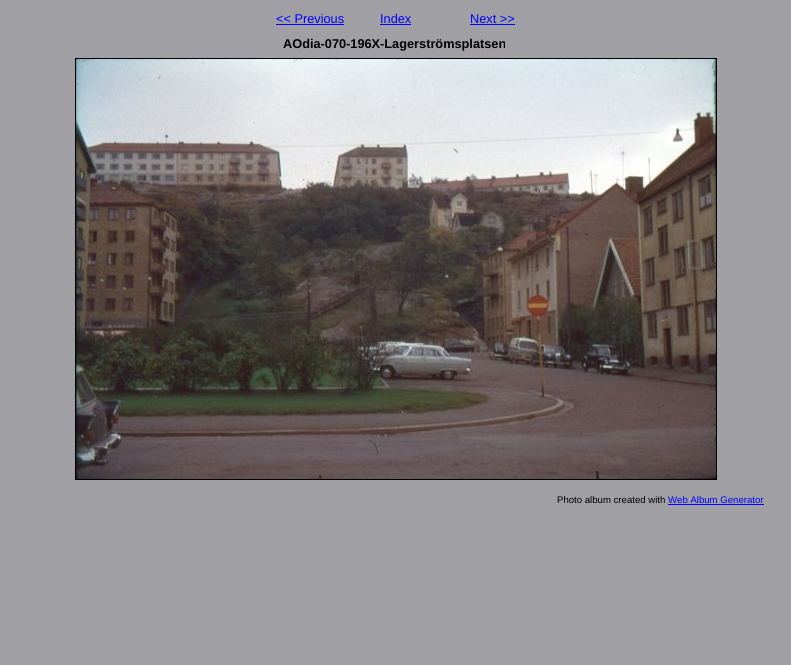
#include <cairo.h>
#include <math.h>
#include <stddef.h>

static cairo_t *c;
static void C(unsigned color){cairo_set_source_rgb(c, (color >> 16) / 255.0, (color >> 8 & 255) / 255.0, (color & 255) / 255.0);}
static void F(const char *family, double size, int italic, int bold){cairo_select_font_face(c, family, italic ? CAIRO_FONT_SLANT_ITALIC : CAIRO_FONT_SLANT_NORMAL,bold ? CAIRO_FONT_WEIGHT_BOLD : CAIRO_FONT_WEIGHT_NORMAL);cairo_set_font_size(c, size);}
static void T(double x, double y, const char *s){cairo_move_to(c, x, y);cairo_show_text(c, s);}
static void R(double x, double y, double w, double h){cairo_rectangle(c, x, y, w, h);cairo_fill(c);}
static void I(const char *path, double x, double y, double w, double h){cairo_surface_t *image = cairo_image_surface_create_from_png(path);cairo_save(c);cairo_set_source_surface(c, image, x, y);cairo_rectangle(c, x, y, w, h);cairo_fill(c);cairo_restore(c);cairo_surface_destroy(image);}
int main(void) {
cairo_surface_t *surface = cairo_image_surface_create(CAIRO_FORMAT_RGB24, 791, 665);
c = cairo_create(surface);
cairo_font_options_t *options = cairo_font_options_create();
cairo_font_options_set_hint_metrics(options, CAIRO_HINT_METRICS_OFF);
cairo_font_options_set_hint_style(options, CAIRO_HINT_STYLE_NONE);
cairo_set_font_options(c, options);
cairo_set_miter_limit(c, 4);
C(0xa0a0a4);
cairo_paint(c);
F("Liberation Sans",12.75,0,0);
C(0x0000ff);
T(276,23,"<< Previous");
R(276,24,68,1);
T(380,23,"Index");
R(380,24,31,1);
T(470,23,"Next >>");
R(470,24,45,1);
F("Liberation Sans",12.75,0,1);
C(0x000000);
T(283,48,"AOdia-070-196X-Lagerströmsplatsen");
cairo_rectangle(c,75.5,58.5,641,421);
cairo_set_line_width(c,1);
cairo_stroke(c);
I("1.png",76,59,640,420);
F("Liberation Sans",9.6,0,0);
T(557,503,"Photo album created with");
C(0x0000ff);
T(668,503,"Web Album Generator");
R(668,504,96,1);
cairo_surface_write_to_png(surface, "o.png");
cairo_font_options_destroy(options);
cairo_destroy(c);
cairo_surface_destroy(surface);
return 0;
}
